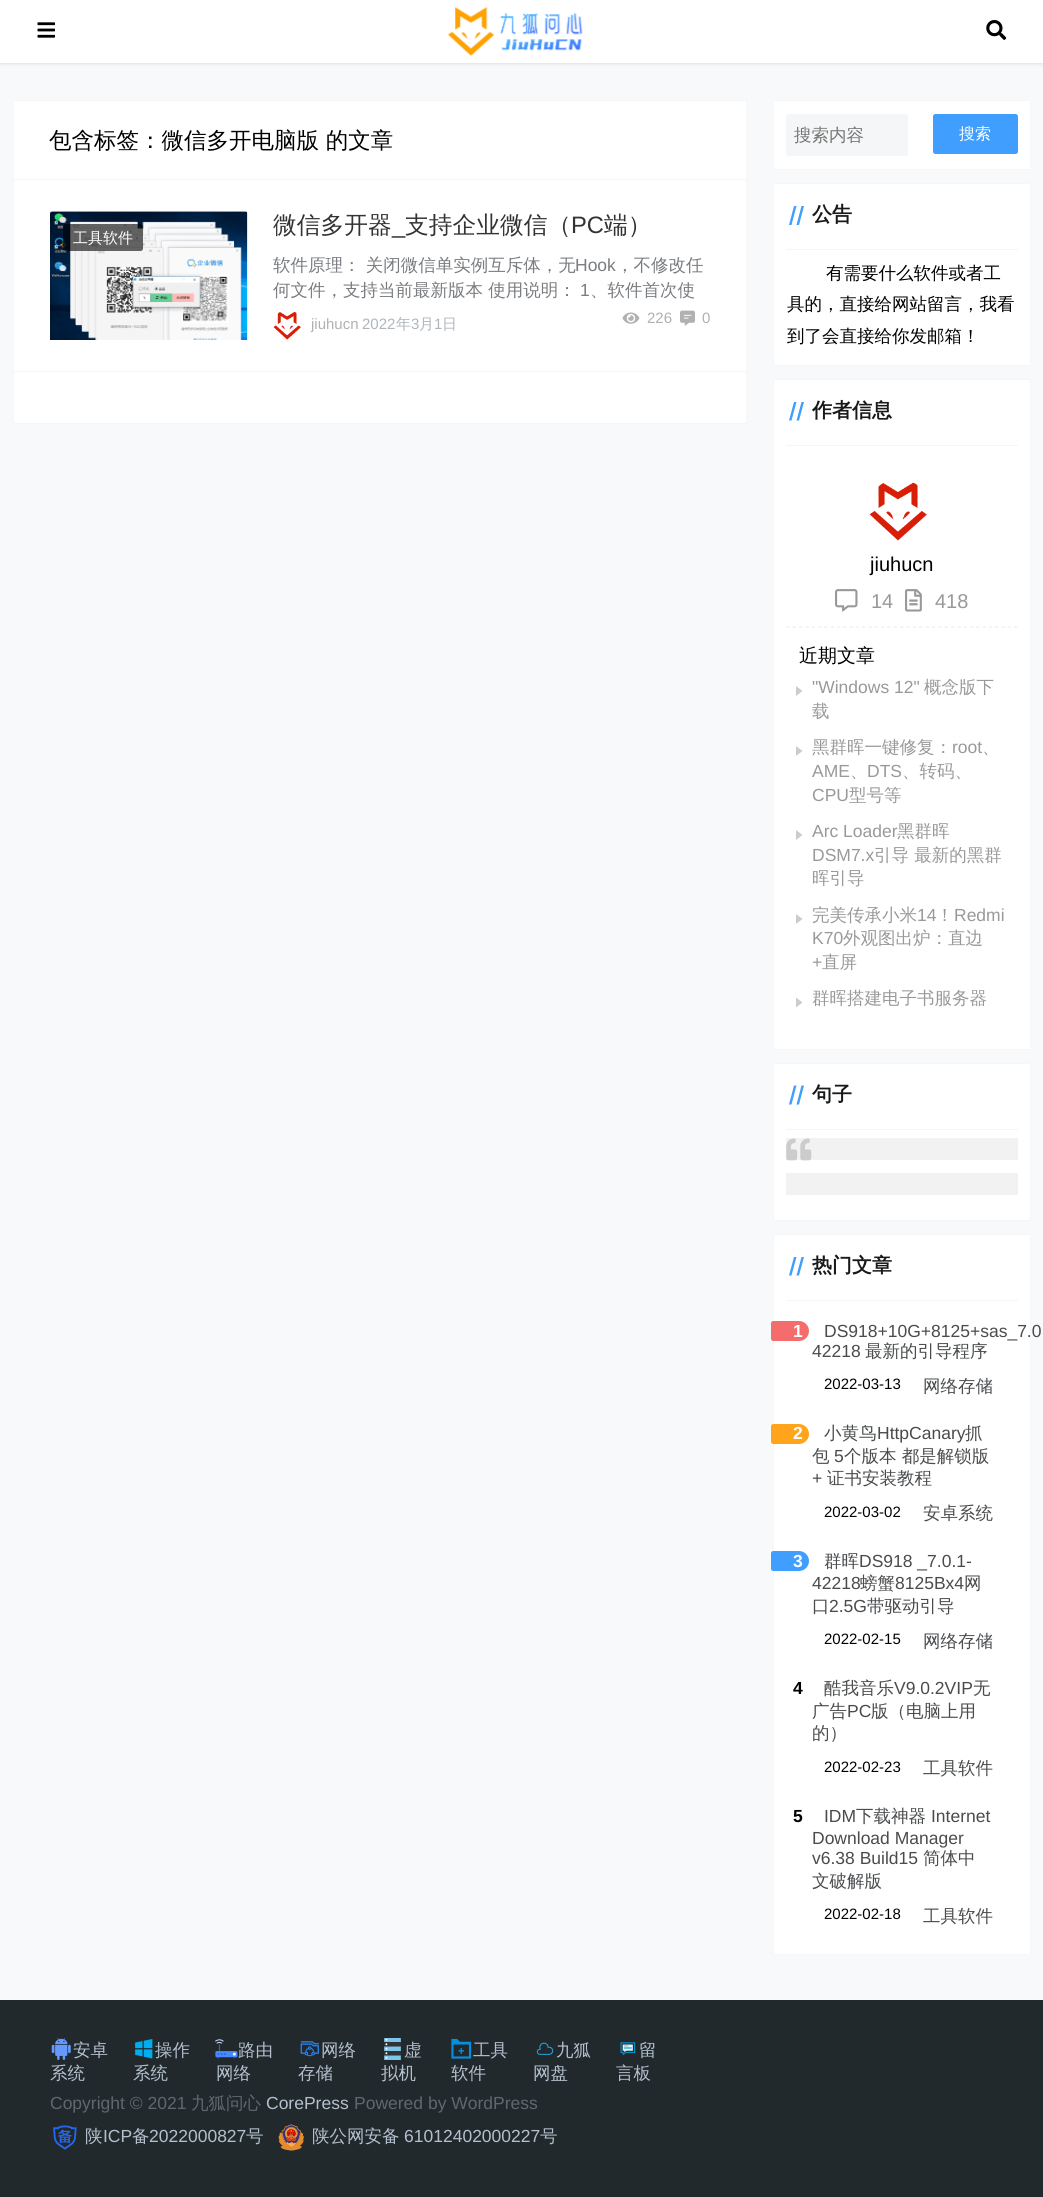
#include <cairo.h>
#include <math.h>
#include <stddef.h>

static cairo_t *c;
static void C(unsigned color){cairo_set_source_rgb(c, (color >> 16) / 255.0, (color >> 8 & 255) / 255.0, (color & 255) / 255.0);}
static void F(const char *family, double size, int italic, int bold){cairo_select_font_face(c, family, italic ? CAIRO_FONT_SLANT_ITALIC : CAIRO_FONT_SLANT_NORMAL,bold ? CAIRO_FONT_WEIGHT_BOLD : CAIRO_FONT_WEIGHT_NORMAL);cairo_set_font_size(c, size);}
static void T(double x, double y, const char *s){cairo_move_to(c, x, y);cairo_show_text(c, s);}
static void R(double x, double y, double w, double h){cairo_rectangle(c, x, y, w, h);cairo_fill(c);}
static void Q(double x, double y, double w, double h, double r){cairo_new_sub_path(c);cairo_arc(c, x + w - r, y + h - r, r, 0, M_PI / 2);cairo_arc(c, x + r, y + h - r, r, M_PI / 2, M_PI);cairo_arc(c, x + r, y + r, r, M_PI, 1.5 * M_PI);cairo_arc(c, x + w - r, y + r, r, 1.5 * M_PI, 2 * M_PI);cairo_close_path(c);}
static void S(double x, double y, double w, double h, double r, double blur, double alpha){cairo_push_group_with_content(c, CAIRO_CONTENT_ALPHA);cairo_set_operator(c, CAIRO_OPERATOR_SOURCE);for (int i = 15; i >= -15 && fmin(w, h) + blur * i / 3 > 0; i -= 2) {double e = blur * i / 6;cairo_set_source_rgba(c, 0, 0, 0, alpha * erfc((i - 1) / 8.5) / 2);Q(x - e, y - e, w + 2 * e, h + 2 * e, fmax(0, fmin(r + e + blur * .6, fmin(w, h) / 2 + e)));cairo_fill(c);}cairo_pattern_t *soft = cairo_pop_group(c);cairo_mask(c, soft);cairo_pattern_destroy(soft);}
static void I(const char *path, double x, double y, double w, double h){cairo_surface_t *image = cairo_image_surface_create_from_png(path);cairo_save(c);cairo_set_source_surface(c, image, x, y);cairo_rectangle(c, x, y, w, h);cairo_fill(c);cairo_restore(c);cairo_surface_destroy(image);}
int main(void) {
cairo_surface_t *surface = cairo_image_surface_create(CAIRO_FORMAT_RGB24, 1043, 2197);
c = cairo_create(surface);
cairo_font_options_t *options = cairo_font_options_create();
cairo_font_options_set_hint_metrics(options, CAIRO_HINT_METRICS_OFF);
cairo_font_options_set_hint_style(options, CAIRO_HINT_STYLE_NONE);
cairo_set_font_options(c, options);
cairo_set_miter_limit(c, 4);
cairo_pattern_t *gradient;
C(0xf7f9fa);
cairo_paint(c);
C(0x000000);
S(-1,-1,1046,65,0,2,.1);
C(0xffffff);
R(0,0,1043,63);
I("1.png",37,22,18,16);
I("2.png",448,6,135,51);
I("3.png",986,20,21,20);
Q(13.5,100.5,734,323,2);
C(0xf5f6f7);
cairo_set_line_width(c,1);
cairo_stroke(c);
C(0xffffff);
cairo_new_path(c);
cairo_move_to(c,15,101);
cairo_line_to(c,745,101);
cairo_curve_to(c,745.5,101,746,101.5,746,102);
cairo_line_to(c,746,180);
cairo_line_to(c,14,180);
cairo_line_to(c,14,102);
cairo_curve_to(c,14,101.5,14.5,101,15,101);
cairo_close_path(c);
cairo_fill(c);
C(0xf5f6f7);
R(14,179,732,1);
F("WenQuanYi Zen Hei Medium",22.5,0,0);
C(0x000000);
T(49,148,"包含标签：微信多开电脑版 的文章");
C(0xffffff);
R(14,180,732,193);
C(0xf5f6f7);
R(14,371,732,1);
I("4.png",50,211,198,129);
F("WenQuanYi Zen Hei Medium",23.75,0,0);
C(0x333333);
T(273,233,"微信多开器");
F("Liberation Sans",23.75,0,0);
T(392,233,"_");
F("WenQuanYi Zen Hei Medium",23.75,0,0);
T(405,233,"支持企业微信（");
F("Liberation Sans",23.75,0,0);
T(571,233,"PC");
F("WenQuanYi Zen Hei Medium",23.75,0,0);
T(604,233,"端）");
F("WenQuanYi Zen Hei Medium",17.5,0,0);
C(0x797c80);
T(273,271,"软件原理： 关闭微信单实例互斥体，无");
F("Liberation Sans",17.5,0,0);
T(575,271,"Hook");
F("WenQuanYi Zen Hei Medium",17.5,0,0);
T(616,271,"，不修改任");
T(273,296,"何文件，支持当前最新版本 使用说明：");
F("Liberation Sans",17.5,0,0);
T(580,296,"1");
F("WenQuanYi Zen Hei Medium",17.5,0,0);
T(590,296,"、软件首次使");
I("5.png",273,312,28,28);
F("Liberation Sans",15,0,0);
C(0xb1b1b1);
T(311,329,"jiuhucn");
C(0xadb5bd);
T(362,329,"2022");
F("WenQuanYi Zen Hei Medium",15,0,0);
T(396,329,"年");
F("Liberation Sans",15,0,0);
T(411,329,"3");
F("WenQuanYi Zen Hei Medium",15,0,0);
T(419,329,"月");
F("Liberation Sans",15,0,0);
T(434,329,"1");
F("WenQuanYi Zen Hei Medium",15,0,0);
T(442,329,"日");
I("6.png",622,312,18,12);
F("Liberation Sans",15,0,0);
C(0xb1b1b1);
T(647,323,"226");
I("7.png",680,310,15,16);
T(702,323,"0");
cairo_set_source_rgba(c,0,0,0,0.6);
Q(63,224,80,27,2.5);
cairo_fill(c);
F("WenQuanYi Zen Hei Medium",15,0,0);
C(0xffffff);
T(73,243,"工具软件");
cairo_new_path(c);
cairo_move_to(c,14,373);
cairo_line_to(c,746,373);
cairo_line_to(c,746,422);
cairo_curve_to(c,746,422.5,745.5,423,745,423);
cairo_line_to(c,15,423);
cairo_curve_to(c,14.5,423,14,422.5,14,422);
cairo_close_path(c);
cairo_fill(c);
Q(773.5,100.5,257,69,2);
cairo_fill_preserve(c);
C(0xf5f6f7);
cairo_stroke(c);
Q(786,114,122,42,2.5);
cairo_fill(c);
F("WenQuanYi Zen Hei Medium",17.5,0,0);
C(0x757575);
T(794,141,"搜索内容");
C(0x409eff);
Q(933,114,85,40,2.5);
cairo_fill(c);
F("WenQuanYi Zen Hei Medium",16,0,0);
C(0xffffff);
T(959,139,"搜索");
Q(773.5,183.5,257,182,2);
cairo_fill_preserve(c);
C(0xf5f6f7);
cairo_stroke(c);
R(786,249,232,1);
C(0x409eff);
cairo_new_path(c);
cairo_move_to(c,794,206);
cairo_line_to(c,796.5,206);
cairo_line_to(c,791.5,225);
cairo_line_to(c,789,225);
cairo_close_path(c);
cairo_fill(c);
cairo_new_path(c);
cairo_move_to(c,801.5,206);
cairo_line_to(c,804,206);
cairo_line_to(c,799,225);
cairo_line_to(c,796.5,225);
cairo_close_path(c);
cairo_fill(c);
F("WenQuanYi Zen Hei",20,0,1);
C(0x18191a);
T(812,221,"公告");
F("WenQuanYi Zen Hei Medium",17.5,0,0);
C(0x000000);
T(826,279,"有需要什么软件或者工");
T(787,310,"具的，直接给网站留言，我看");
T(787,342,"到了会直接给你发邮箱！");
C(0xffffff);
Q(773.5,379.5,257,670,2);
cairo_fill_preserve(c);
C(0xf5f6f7);
cairo_stroke(c);
R(786,445,232,1);
C(0x409eff);
cairo_new_path(c);
cairo_move_to(c,794,402);
cairo_line_to(c,796.5,402);
cairo_line_to(c,791.5,420.5);
cairo_line_to(c,789,420.5);
cairo_close_path(c);
cairo_fill(c);
cairo_new_path(c);
cairo_move_to(c,801.5,402);
cairo_line_to(c,804,402);
cairo_line_to(c,799,420.5);
cairo_line_to(c,796.5,420.5);
cairo_close_path(c);
cairo_fill(c);
F("WenQuanYi Zen Hei",20,0,1);
C(0x18191a);
T(812,417,"作者信息");
I("8.png",869,482,58,59);
F("Liberation Sans",20,0,0);
C(0x000000);
T(870,571,"jiuhucn");
I("9.png",835,589,23,23);
C(0x999999);
T(871,608,"14");
I("10.png",905,589,17,23);
T(935,608,"418");
cairo_new_path(c);
cairo_move_to(c,786,627);
cairo_line_to(c,1017.5,627);
C(0xefefef);
cairo_set_line_width(c,1.2);
cairo_set_dash(c,(double[]){3.75,2.58},2,0);
cairo_stroke(c);
F("WenQuanYi Zen Hei Medium",19,0,0);
C(0x000000);
T(799,662,"近期文章");
C(0xcccccc);
cairo_new_path(c);
cairo_move_to(c,796,696);
cairo_line_to(c,796,686);
cairo_line_to(c,802.5,691);
cairo_close_path(c);
cairo_fill(c);
F("Liberation Sans",17.5,0,0);
C(0x999999);
T(812,693,"\"Windows 12\"");
F("WenQuanYi Zen Hei Medium",17.5,0,0);
T(924,693,"概念版下");
T(812,717,"载");
C(0xcccccc);
cairo_new_path(c);
cairo_move_to(c,796,756);
cairo_line_to(c,796,746);
cairo_line_to(c,802.5,751);
cairo_close_path(c);
cairo_fill(c);
C(0x999999);
T(812,753,"黑群晖一键修复：");
F("Liberation Sans",17.5,0,0);
T(952,753,"root");
F("WenQuanYi Zen Hei Medium",17.5,0,0);
T(982,753,"、");
F("Liberation Sans",17.5,0,0);
T(812,777,"AME");
F("WenQuanYi Zen Hei Medium",17.5,0,0);
T(850,777,"、");
F("Liberation Sans",17.5,0,0);
T(867,777,"DTS");
F("WenQuanYi Zen Hei Medium",17.5,0,0);
T(902,777,"、转码、");
F("Liberation Sans",17.5,0,0);
T(812,801,"CPU");
F("WenQuanYi Zen Hei Medium",17.5,0,0);
T(849,801,"型号等");
C(0xcccccc);
cairo_new_path(c);
cairo_move_to(c,796,840);
cairo_line_to(c,796,830);
cairo_line_to(c,802.5,835);
cairo_close_path(c);
cairo_fill(c);
F("Liberation Sans",17.5,0,0);
C(0x999999);
T(812,837,"Arc Loader");
F("WenQuanYi Zen Hei Medium",17.5,0,0);
T(897,837,"黑群晖");
F("Liberation Sans",17.5,0,0);
T(812,861,"DSM7.x");
F("WenQuanYi Zen Hei Medium",17.5,0,0);
T(874,861,"引导 最新的黑群");
T(812,884,"晖引导");
C(0xcccccc);
cairo_new_path(c);
cairo_move_to(c,796,924);
cairo_line_to(c,796,914);
cairo_line_to(c,802.5,919);
cairo_close_path(c);
cairo_fill(c);
C(0x999999);
T(812,921,"完美传承小米");
F("Liberation Sans",17.5,0,0);
T(917,921,"14");
F("WenQuanYi Zen Hei Medium",17.5,0,0);
T(936,921,"！");
F("Liberation Sans",17.5,0,0);
T(954,921,"Redmi");
T(812,944,"K70");
F("WenQuanYi Zen Hei Medium",17.5,0,0);
T(843,944,"外观图出炉：直边");
F("Liberation Sans",17.5,0,0);
T(812,968,"+");
F("WenQuanYi Zen Hei Medium",17.5,0,0);
T(822,968,"直屏");
C(0xcccccc);
cairo_new_path(c);
cairo_move_to(c,796,1007.5);
cairo_line_to(c,796,997.5);
cairo_line_to(c,802.5,1002.5);
cairo_close_path(c);
cairo_fill(c);
C(0x999999);
T(812,1004,"群晖搭建电子书服务器");
C(0xffffff);
Q(773.5,1063.5,257,157,2);
cairo_fill_preserve(c);
C(0xf5f6f7);
cairo_set_line_width(c,1);
cairo_set_dash(c,NULL,0,0);
cairo_stroke(c);
R(786,1129,232,1);
C(0x409eff);
cairo_new_path(c);
cairo_move_to(c,794,1085.5);
cairo_line_to(c,796.5,1085.5);
cairo_line_to(c,791.5,1104.5);
cairo_line_to(c,789,1104.5);
cairo_close_path(c);
cairo_fill(c);
cairo_new_path(c);
cairo_move_to(c,801.5,1085.5);
cairo_line_to(c,804,1085.5);
cairo_line_to(c,799,1104.5);
cairo_line_to(c,796.5,1104.5);
cairo_close_path(c);
cairo_fill(c);
F("WenQuanYi Zen Hei",20,0,1);
C(0x18191a);
T(812,1101,"句子");
gradient = cairo_pattern_create_linear(93,1149,1018,1149);
cairo_pattern_add_color_stop_rgba(gradient,.25,0.949,0.949,0.949,1);
cairo_pattern_add_color_stop_rgba(gradient,.37,0.902,0.902,0.902,1);
cairo_pattern_add_color_stop_rgba(gradient,.63,0.949,0.949,0.949,1);
cairo_set_source(c,gradient);
cairo_pattern_destroy(gradient);
R(786,1138,232,22);
gradient = cairo_pattern_create_linear(93,1184,1018,1184);
cairo_pattern_add_color_stop_rgba(gradient,.25,0.949,0.949,0.949,1);
cairo_pattern_add_color_stop_rgba(gradient,.37,0.902,0.902,0.902,1);
cairo_pattern_add_color_stop_rgba(gradient,.63,0.949,0.949,0.949,1);
cairo_set_source(c,gradient);
cairo_pattern_destroy(gradient);
R(786,1173,232,22);
I("11.png",786,1138,26,23);
C(0xffffff);
Q(773.5,1234.5,257,720,2);
cairo_fill_preserve(c);
C(0xf5f6f7);
cairo_stroke(c);
R(786,1300,232,1);
C(0x409eff);
cairo_new_path(c);
cairo_move_to(c,794,1257);
cairo_line_to(c,796.5,1257);
cairo_line_to(c,791.5,1275.5);
cairo_line_to(c,789,1275.5);
cairo_close_path(c);
cairo_fill(c);
cairo_new_path(c);
cairo_move_to(c,801.5,1257);
cairo_line_to(c,804,1257);
cairo_line_to(c,799,1275.5);
cairo_line_to(c,796.5,1275.5);
cairo_close_path(c);
cairo_fill(c);
C(0x18191a);
T(812,1272,"热门文章");
C(0xf56c6c);
cairo_new_path(c);
cairo_move_to(c,773.5,1321);
cairo_line_to(c,799,1321);
cairo_curve_to(c,804.5,1321,809,1325.5,809,1331);
cairo_curve_to(c,809,1336.5,804.5,1341,799,1341);
cairo_line_to(c,773.5,1341);
cairo_curve_to(c,772,1341,771,1340,771,1338.5);
cairo_line_to(c,771,1323.5);
cairo_curve_to(c,771,1322,772,1321,773.5,1321);
cairo_close_path(c);
cairo_fill(c);
F("Liberation Sans",17.5,0,1);
C(0xffffff);
T(793,1337,"1");
F("Liberation Sans",17.5,0,0);
C(0x494b4d);
T(824,1337,"DS918+10G+8125+sas_7.0");
T(812,1357,"42218");
F("WenQuanYi Zen Hei Medium",17.5,0,0);
T(865,1357,"最新的引导程序");
F("Liberation Sans",15,0,0);
C(0x000000);
T(824,1389,"2022-03-13");
F("WenQuanYi Zen Hei Medium",17.5,0,0);
C(0x494b4d);
T(923,1392,"网络存储");
C(0xffa41b);
cairo_new_path(c);
cairo_move_to(c,773.5,1424);
cairo_line_to(c,799,1424);
cairo_curve_to(c,804.5,1424,809,1428.5,809,1434);
cairo_curve_to(c,809,1439.5,804.5,1444,799,1444);
cairo_line_to(c,773.5,1444);
cairo_curve_to(c,772,1444,771,1443,771,1441.5);
cairo_line_to(c,771,1426.5);
cairo_curve_to(c,771,1425,772,1424,773.5,1424);
cairo_close_path(c);
cairo_fill(c);
F("Liberation Sans",17.5,0,1);
C(0xffffff);
T(793,1439,"2");
F("WenQuanYi Zen Hei Medium",17.5,0,0);
C(0x494b4d);
T(824,1439,"小黄鸟");
F("Liberation Sans",17.5,0,0);
T(877,1439,"HttpCanary");
F("WenQuanYi Zen Hei Medium",17.5,0,0);
T(965,1439,"抓");
T(812,1462,"包");
F("Liberation Sans",17.5,0,0);
T(834,1462,"5");
F("WenQuanYi Zen Hei Medium",17.5,0,0);
T(844,1462,"个版本 都是解锁版");
F("Liberation Sans",17.5,0,0);
T(812,1484,"+");
F("WenQuanYi Zen Hei Medium",17.5,0,0);
T(827,1484,"证书安装教程");
F("Liberation Sans",15,0,0);
C(0x000000);
T(824,1517,"2022-03-02");
F("WenQuanYi Zen Hei Medium",17.5,0,0);
C(0x494b4d);
T(923,1519,"安卓系统");
C(0x409eff);
cairo_new_path(c);
cairo_move_to(c,773.5,1551);
cairo_line_to(c,799,1551);
cairo_curve_to(c,804.5,1551,809,1555.5,809,1561);
cairo_curve_to(c,809,1566.5,804.5,1571,799,1571);
cairo_line_to(c,773.5,1571);
cairo_curve_to(c,772,1571,771,1570,771,1568.5);
cairo_line_to(c,771,1553.5);
cairo_curve_to(c,771,1552,772,1551,773.5,1551);
cairo_close_path(c);
cairo_fill(c);
F("Liberation Sans",17.5,0,1);
C(0xffffff);
T(793,1567,"3");
F("WenQuanYi Zen Hei Medium",17.5,0,0);
C(0x494b4d);
T(824,1567,"群晖");
F("Liberation Sans",17.5,0,0);
T(859,1567,"DS918 _7.0.1-");
T(812,1589,"42218");
F("WenQuanYi Zen Hei Medium",17.5,0,0);
T(860,1589,"螃蟹");
F("Liberation Sans",17.5,0,0);
T(895,1589,"8125Bx4");
F("WenQuanYi Zen Hei Medium",17.5,0,0);
T(964,1589,"网");
T(812,1612,"口");
F("Liberation Sans",17.5,0,0);
T(829,1612,"2.5G");
F("WenQuanYi Zen Hei Medium",17.5,0,0);
T(867,1612,"带驱动引导");
F("Liberation Sans",15,0,0);
C(0x000000);
T(824,1644,"2022-02-15");
F("WenQuanYi Zen Hei Medium",17.5,0,0);
C(0x494b4d);
T(923,1647,"网络存储");
F("Liberation Sans",17.5,0,1);
C(0x000000);
T(793,1694,"4");
F("WenQuanYi Zen Hei Medium",17.5,0,0);
C(0x494b4d);
T(824,1694,"酷我音乐");
F("Liberation Sans",17.5,0,0);
T(894,1694,"V9.0.2VIP");
F("WenQuanYi Zen Hei Medium",17.5,0,0);
T(973,1694,"无");
T(812,1717,"广告");
F("Liberation Sans",17.5,0,0);
T(847,1717,"PC");
F("WenQuanYi Zen Hei Medium",17.5,0,0);
T(871,1717,"版（电脑上用");
T(812,1739,"的）");
F("Liberation Sans",15,0,0);
C(0x000000);
T(824,1772,"2022-02-23");
F("WenQuanYi Zen Hei Medium",17.5,0,0);
C(0x494b4d);
T(923,1774,"工具软件");
F("Liberation Sans",17.5,0,1);
C(0x000000);
T(793,1822,"5");
F("Liberation Sans",17.5,0,0);
C(0x494b4d);
T(824,1822,"IDM");
F("WenQuanYi Zen Hei Medium",17.5,0,0);
T(856,1822,"下载神器");
F("Liberation Sans",17.5,0,0);
T(931,1822,"Internet");
T(812,1844,"Download Manager");
T(812,1864,"v6.38 Build15");
F("WenQuanYi Zen Hei Medium",17.5,0,0);
T(923,1864,"简体中");
T(812,1887,"文破解版");
F("Liberation Sans",15,0,0);
C(0x000000);
T(824,1919,"2022-02-18");
F("WenQuanYi Zen Hei Medium",17.5,0,0);
C(0x494b4d);
T(923,1922,"工具软件");
C(0x22292d);
R(0,2000,1043,197);
I("12.png",51,2038,20,22);
C(0xb3c0ce);
T(73,2056,"安卓");
T(50,2079,"系统");
I("13.png",135,2039,18,20);
T(155,2056,"操作");
T(133,2079,"系统");
I("14.png",215,2039,23,20);
T(238,2056,"路由");
T(216,2079,"网络");
I("15.png",300,2041,19,16);
T(321,2056,"网络");
T(298,2079,"存储");
I("16.png",384,2038,17,22);
T(404,2056,"虚");
T(381,2079,"拟机");
I("17.png",451,2038,21,21);
T(473,2056,"工具");
T(451,2079,"软件");
I("18.png",536,2042,18,13);
T(556,2056,"九狐");
T(533,2079,"网盘");
I("19.png",620,2042,16,13);
T(639,2056,"留");
T(616,2079,"言板");
F("Liberation Sans",17.5,0,0);
C(0x5f676f);
T(50,2109,"Copyright © 2021");
F("WenQuanYi Zen Hei Medium",17.5,0,0);
T(191,2109,"九狐问心");
F("Liberation Sans",17.5,0,0);
C(0xb3c0ce);
T(266,2109,"CorePress");
C(0x5f676f);
T(354,2109,"Powered by WordPress");
I("20.png",53,2125,24,25);
F("WenQuanYi Zen Hei Medium",17.5,0,0);
C(0xb3c0ce);
T(85,2142,"陕");
F("Liberation Sans",17.5,0,0);
T(103,2142,"ICP");
F("WenQuanYi Zen Hei Medium",17.5,0,0);
T(132,2142,"备");
F("Liberation Sans",17.5,0,0);
T(149,2142,"2022000827");
F("WenQuanYi Zen Hei Medium",17.5,0,0);
T(246,2142,"号");
I("21.png",278,2124,26,27);
T(312,2142,"陕公网安备");
F("Liberation Sans",17.5,0,0);
T(404,2142,"61012402000227");
F("WenQuanYi Zen Hei Medium",17.5,0,0);
T(540,2142,"号");
cairo_surface_write_to_png(surface, "o.png");
cairo_font_options_destroy(options);
cairo_destroy(c);
cairo_surface_destroy(surface);
return 0;
}
